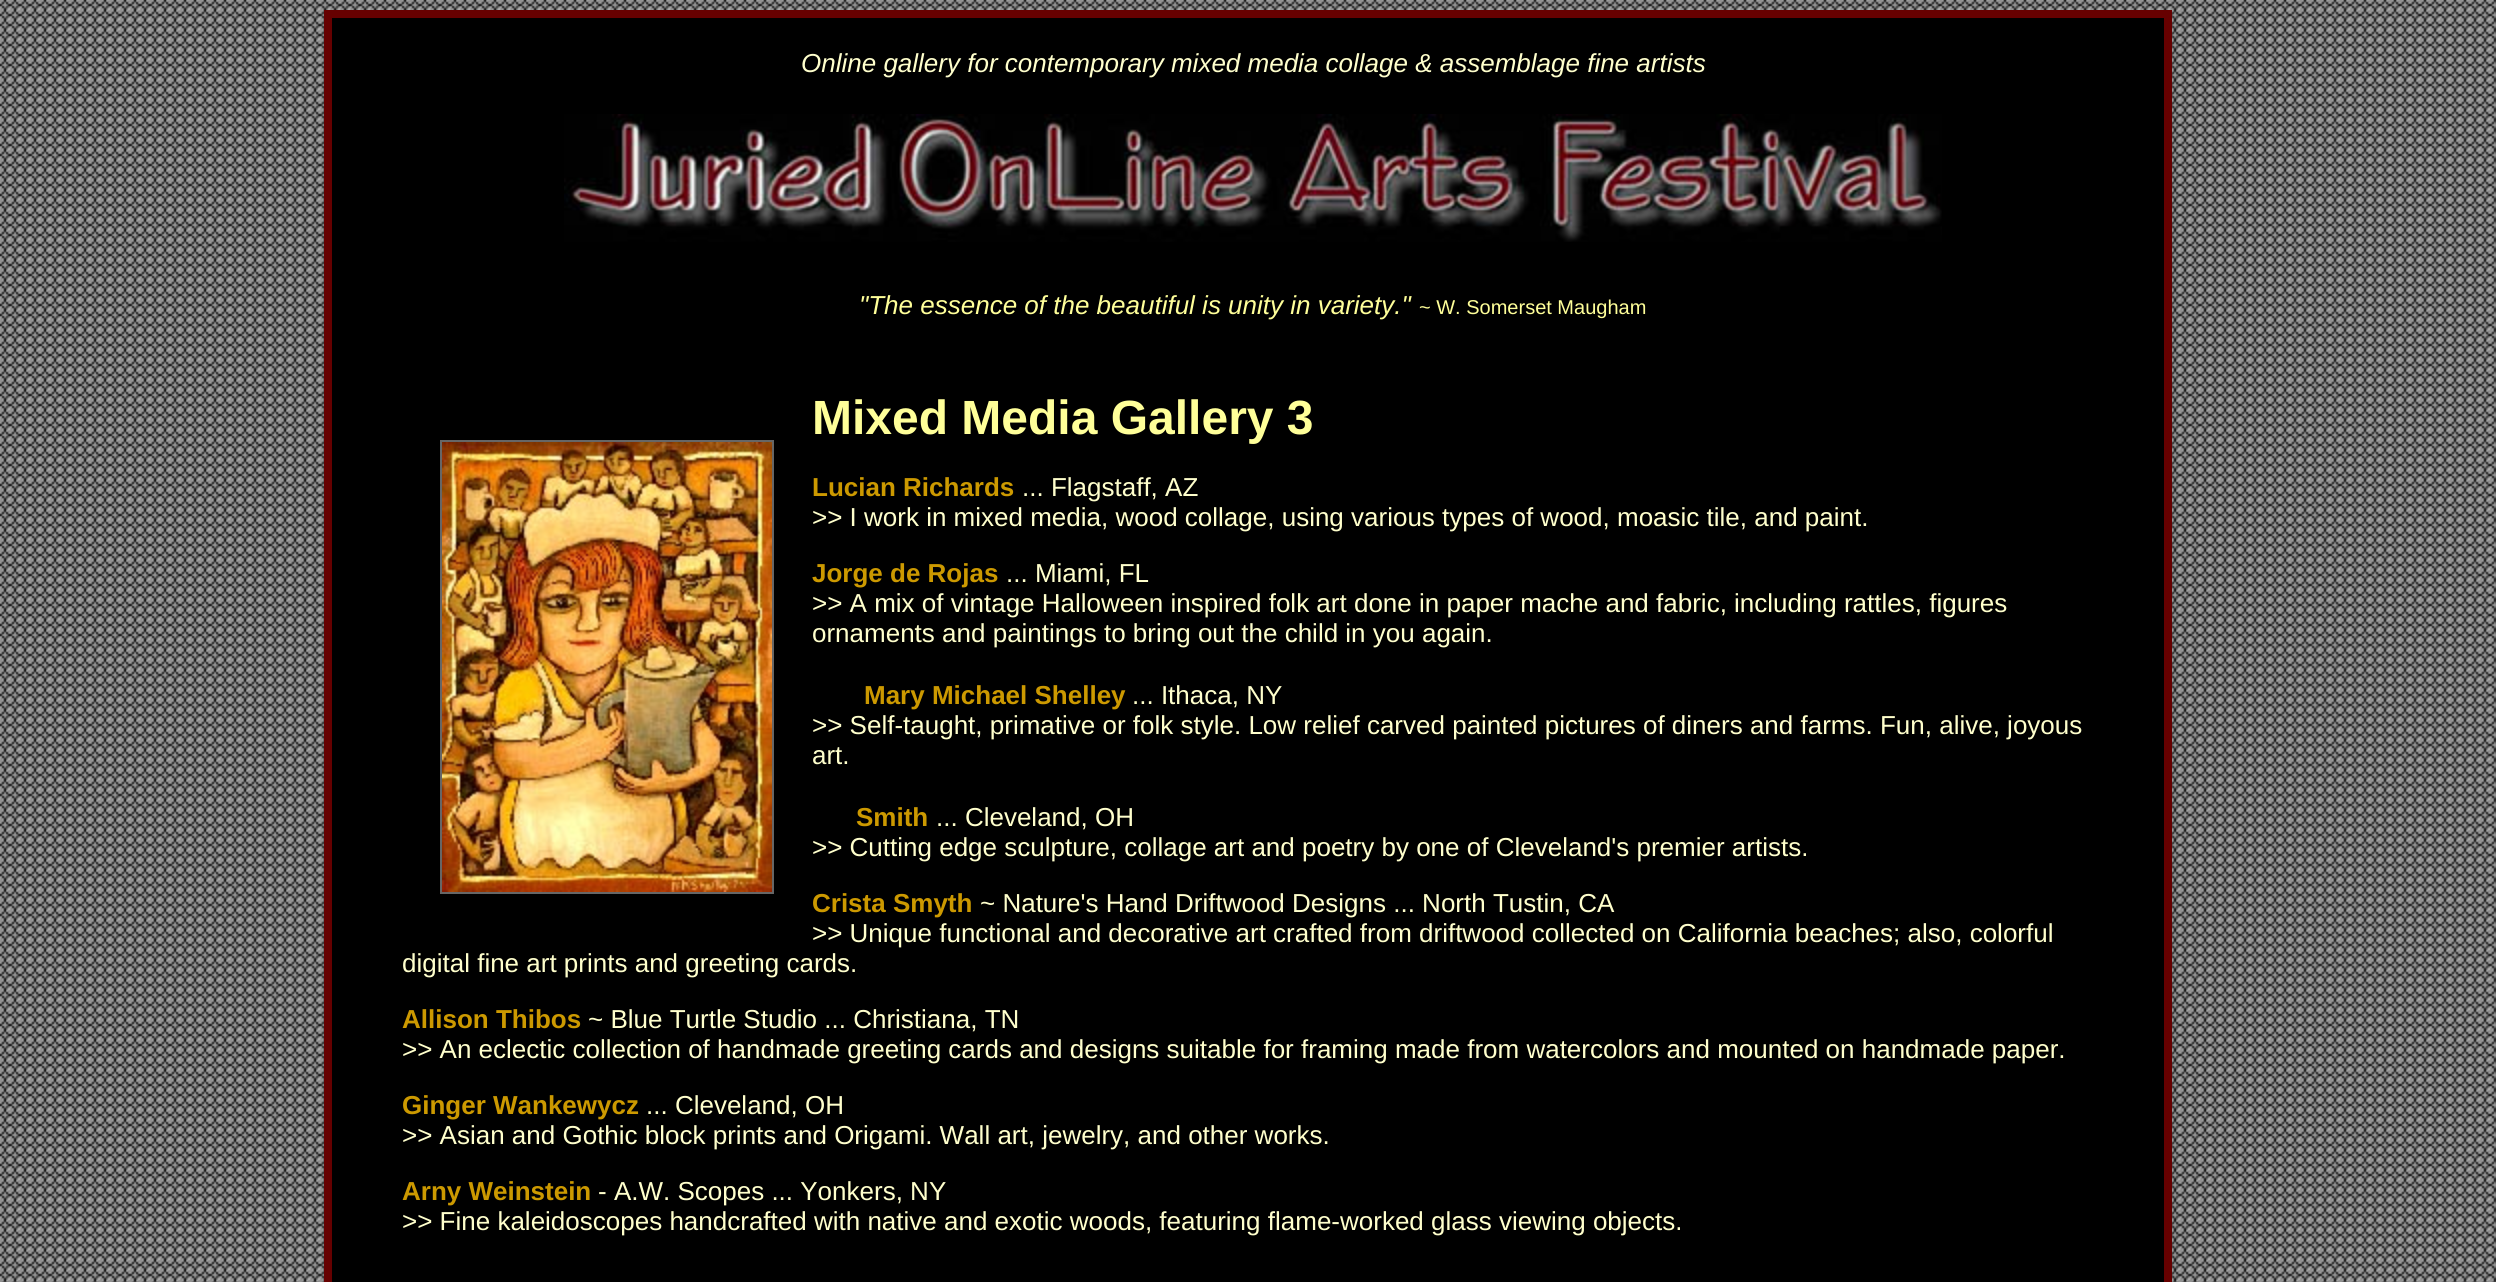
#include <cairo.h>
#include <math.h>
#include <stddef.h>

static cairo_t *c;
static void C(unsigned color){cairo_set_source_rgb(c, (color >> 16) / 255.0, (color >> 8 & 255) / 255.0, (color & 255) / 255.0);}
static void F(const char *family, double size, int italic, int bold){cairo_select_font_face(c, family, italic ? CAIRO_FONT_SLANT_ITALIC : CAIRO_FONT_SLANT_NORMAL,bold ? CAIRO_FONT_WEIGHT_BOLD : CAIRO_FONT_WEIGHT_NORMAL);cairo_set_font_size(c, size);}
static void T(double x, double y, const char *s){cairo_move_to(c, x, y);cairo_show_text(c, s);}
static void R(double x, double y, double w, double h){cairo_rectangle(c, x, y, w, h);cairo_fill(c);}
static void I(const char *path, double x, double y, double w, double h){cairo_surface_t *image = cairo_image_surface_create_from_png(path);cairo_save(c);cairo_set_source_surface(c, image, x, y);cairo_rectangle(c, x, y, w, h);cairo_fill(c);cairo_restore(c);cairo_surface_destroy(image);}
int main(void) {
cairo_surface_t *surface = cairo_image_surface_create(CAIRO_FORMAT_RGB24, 2496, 1282);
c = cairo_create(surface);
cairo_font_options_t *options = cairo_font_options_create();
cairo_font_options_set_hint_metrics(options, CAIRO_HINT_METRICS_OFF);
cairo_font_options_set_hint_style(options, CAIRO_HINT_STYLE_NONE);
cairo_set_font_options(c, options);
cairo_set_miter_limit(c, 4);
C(0xffffff);
cairo_paint(c);
I("1.png",0,0,2496,1282);
C(0x000000);
R(332,18,1832,1264);
cairo_rectangle(c,327,13,1842,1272);
C(0x660000);
cairo_set_line_width(c,6);
cairo_stroke(c);
cairo_rectangle(c,331,17,1834,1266);
cairo_set_line_width(c,2);
cairo_stroke(c);
F("Liberation Sans",26,1,0);
C(0xffffcc);
T(801,72,"Online gallery for contemporary mixed media collage & assemblage fine artists");
I("2.png",564,114,1378,128);
C(0xffff99);
T(859,314,"\"The essence of the beautiful is unity in variety.\"");
F("Liberation Sans",20,0,0);
T(1419,314,"~ W. Somerset Maugham");
F("Liberation Sans",48,0,1);
T(812,434,"Mixed Media Gallery 3");
cairo_rectangle(c,441,441,332,452);
C(0x666666);
cairo_stroke(c);
I("3.png",442,442,330,450);
F("Liberation Sans",26,0,1);
C(0xcc9900);
T(812,496,"Lucian Richards");
F("Liberation Sans",26,0,0);
C(0xffffcc);
T(1022,496,"... Flagstaff, AZ");
T(812,526,">> I work in mixed media, wood collage, using various types of wood, moasic tile, and paint.");
F("Liberation Sans",26,0,1);
C(0xcc9900);
T(812,582,"Jorge de Rojas");
F("Liberation Sans",26,0,0);
C(0xffffcc);
T(1006,582,"... Miami, FL");
T(812,612,">> A mix of vintage Halloween inspired folk art done in paper mache and fabric, including rattles, figures");
T(812,642,"ornaments and paintings to bring out the child in you again.");
F("Liberation Sans",26,0,1);
C(0xcc9900);
T(864,704,"Mary Michael Shelley");
F("Liberation Sans",26,0,0);
C(0xffffcc);
T(1132,704,"... Ithaca, NY");
T(812,734,">> Self-taught, primative or folk style. Low relief carved painted pictures of diners and farms. Fun, alive, joyous");
T(812,764,"art.");
F("Liberation Sans",26,0,1);
C(0xcc9900);
T(856,826,"Smith");
F("Liberation Sans",26,0,0);
C(0xffffcc);
T(936,826,"... Cleveland, OH");
T(812,856,">> Cutting edge sculpture, collage art and poetry by one of Cleveland's premier artists.");
F("Liberation Sans",26,0,1);
C(0xcc9900);
T(812,912,"Crista Smyth");
F("Liberation Sans",26,0,0);
C(0xffffcc);
T(980,912,"~ Nature's Hand Driftwood Designs ... North Tustin, CA");
T(812,942,">> Unique functional and decorative art crafted from driftwood collected on California beaches; also, colorful");
T(402,972,"digital fine art prints and greeting cards.");
F("Liberation Sans",26,0,1);
C(0xcc9900);
T(402,1028,"Allison Thibos");
F("Liberation Sans",26,0,0);
C(0xffffcc);
T(588,1028,"~ Blue Turtle Studio ... Christiana, TN");
T(402,1058,">> An eclectic collection of handmade greeting cards and designs suitable for framing made from watercolors and mounted on handmade paper.");
F("Liberation Sans",26,0,1);
C(0xcc9900);
T(402,1114,"Ginger Wankewycz");
F("Liberation Sans",26,0,0);
C(0xffffcc);
T(646,1114,"... Cleveland, OH");
T(402,1144,">> Asian and Gothic block prints and Origami. Wall art, jewelry, and other works.");
F("Liberation Sans",26,0,1);
C(0xcc9900);
T(402,1200,"Arny Weinstein");
F("Liberation Sans",26,0,0);
C(0xffffcc);
T(598,1200,"- A.W. Scopes ... Yonkers, NY");
T(402,1230,">> Fine kaleidoscopes handcrafted with native and exotic woods, featuring flame-worked glass viewing objects.");
cairo_surface_write_to_png(surface, "o.png");
cairo_font_options_destroy(options);
cairo_destroy(c);
cairo_surface_destroy(surface);
return 0;
}
